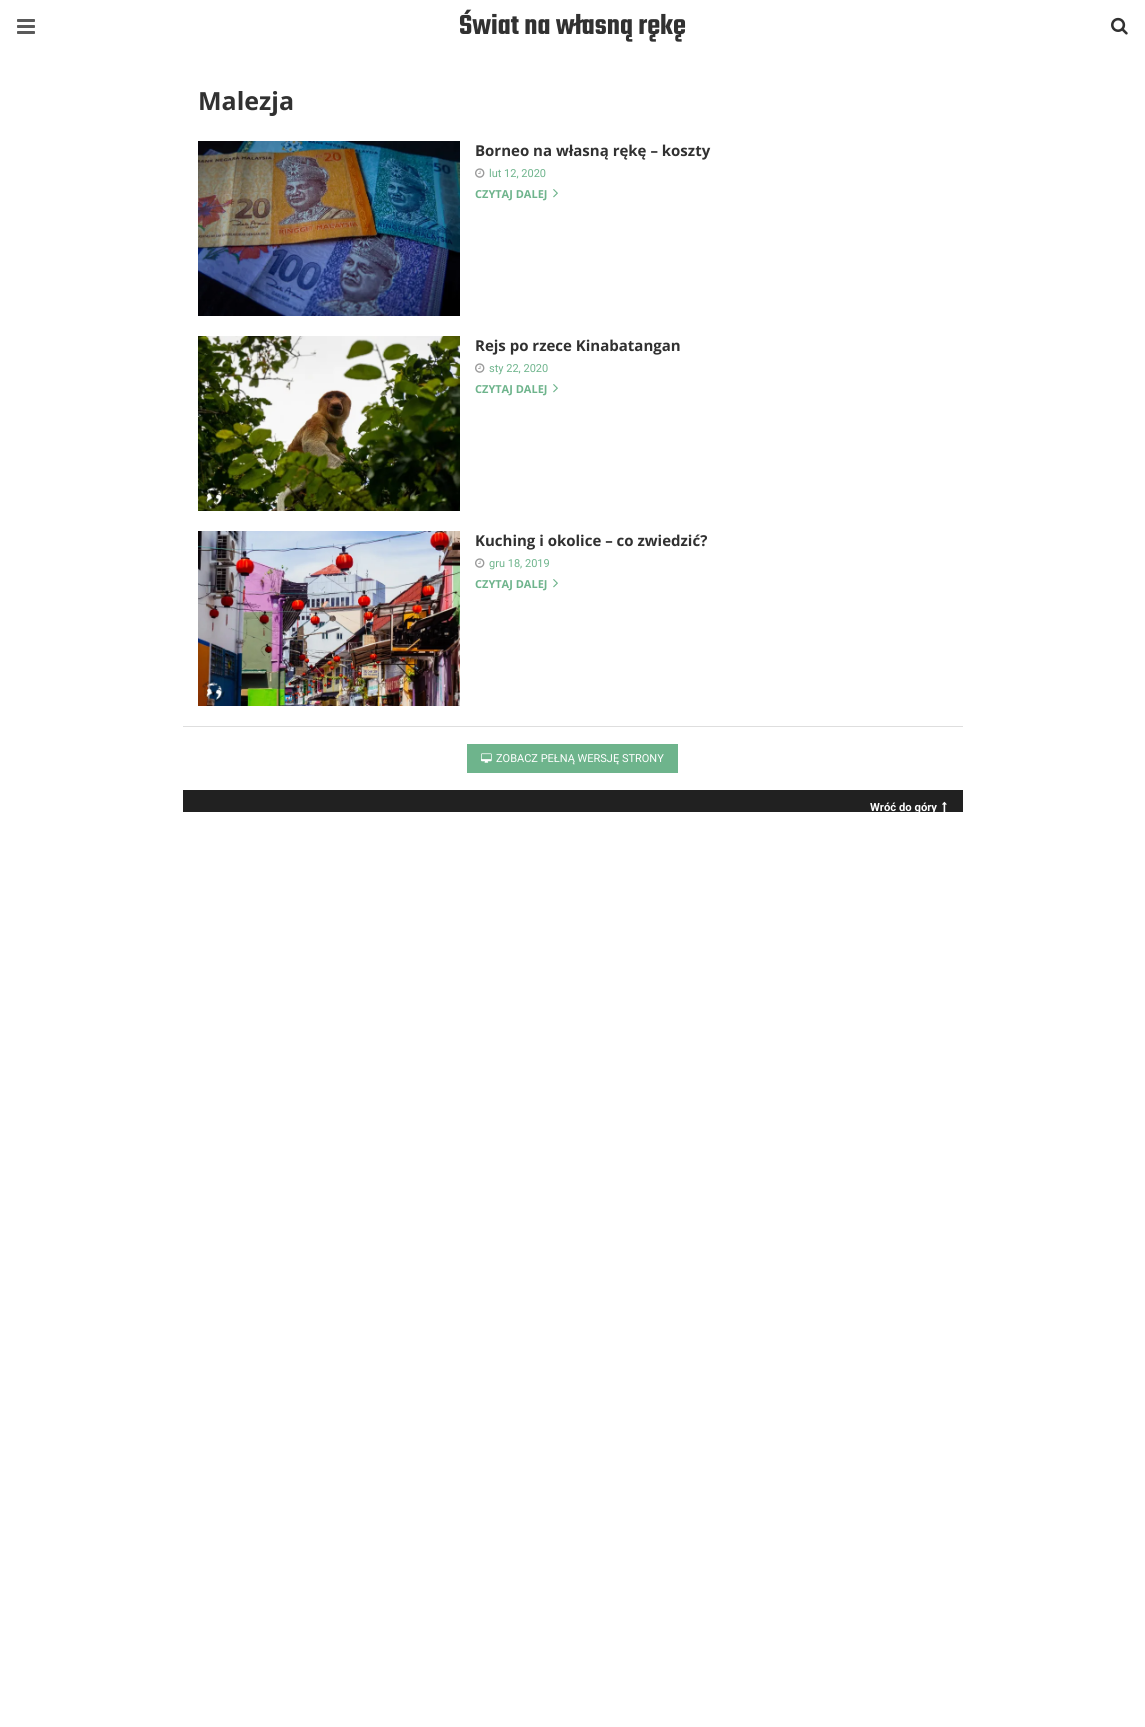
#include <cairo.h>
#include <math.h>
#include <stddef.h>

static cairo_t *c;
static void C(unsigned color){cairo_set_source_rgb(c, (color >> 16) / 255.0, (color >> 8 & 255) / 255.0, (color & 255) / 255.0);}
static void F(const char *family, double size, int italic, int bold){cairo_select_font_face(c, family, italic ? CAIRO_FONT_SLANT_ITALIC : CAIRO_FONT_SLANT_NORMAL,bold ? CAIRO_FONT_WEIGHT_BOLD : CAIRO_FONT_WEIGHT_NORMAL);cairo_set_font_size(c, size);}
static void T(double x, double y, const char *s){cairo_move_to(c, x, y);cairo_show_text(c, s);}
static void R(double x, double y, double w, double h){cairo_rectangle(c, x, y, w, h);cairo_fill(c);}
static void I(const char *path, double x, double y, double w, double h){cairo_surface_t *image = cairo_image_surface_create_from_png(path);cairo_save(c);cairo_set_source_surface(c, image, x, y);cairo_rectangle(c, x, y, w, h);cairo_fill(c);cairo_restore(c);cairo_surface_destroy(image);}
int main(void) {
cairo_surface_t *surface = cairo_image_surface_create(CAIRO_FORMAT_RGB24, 1145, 1727);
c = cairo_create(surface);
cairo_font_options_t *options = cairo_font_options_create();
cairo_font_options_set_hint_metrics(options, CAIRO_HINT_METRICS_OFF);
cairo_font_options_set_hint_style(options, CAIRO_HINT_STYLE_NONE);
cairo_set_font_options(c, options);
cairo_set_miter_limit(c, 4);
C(0xffffff);
cairo_paint(c);
I("1.png",17,19,18,15);
F("Teko SemiBold",30,0,0);
C(0x313131);
T(459,34,"Świat na własną rękę");
I("2.png",1111,17,17,18);
F("Open Sans",25,0,1);
T(198,110,"Malezja");
I("3.png",198,141,262,175);
F("Open Sans",15,0,1);
T(475,156,"Borneo na własną rękę – koszty");
I("4.png",475,168,10,10);
F("Roboto",11,0,0);
C(0x6eb48c);
T(489,177,"lut 12, 2020");
F("Open Sans",11,0,1);
T(475,198,"CZYTAJ DALEJ");
I("5.png",553,189,5,9);
I("6.png",198,336,262,175);
F("Open Sans",15,0,1);
C(0x313131);
T(475,351,"Rejs po rzece Kinabatangan");
I("4.png",475,363,10,10);
F("Roboto",11,0,0);
C(0x6eb48c);
T(489,372,"sty 22, 2020");
F("Open Sans",11,0,1);
T(475,393,"CZYTAJ DALEJ");
I("5.png",553,384,5,9);
I("7.png",198,531,262,175);
F("Open Sans",15,0,1);
C(0x313131);
T(475,546,"Kuching i okolice – co zwiedzić?");
I("4.png",475,558,10,10);
F("Roboto",11,0,0);
C(0x6eb48c);
T(489,567,"gru 18, 2019");
F("Open Sans",11,0,1);
T(475,588,"CZYTAJ DALEJ");
I("5.png",553,579,5,9);
C(0xdedede);
R(183,726,780,1);
C(0x6eb48c);
R(467,744,211,29);
I("8.png",481,753,11,10);
F("Roboto",11,0,0);
C(0xffffff);
T(496,762,"ZOBACZ PEŁNĄ WERSJĘ STRONY");
C(0x212121);
R(183,790,780,22);
cairo_save(c);
cairo_rectangle(c,183,790,780,22);
cairo_clip(c);
F("Roboto",11.25,0,1);
C(0xffffff);
T(870,811,"Wróć do góry");
cairo_restore(c);
I("9.png",942,801,5,11);
cairo_surface_write_to_png(surface, "o.png");
cairo_font_options_destroy(options);
cairo_destroy(c);
cairo_surface_destroy(surface);
return 0;
}
